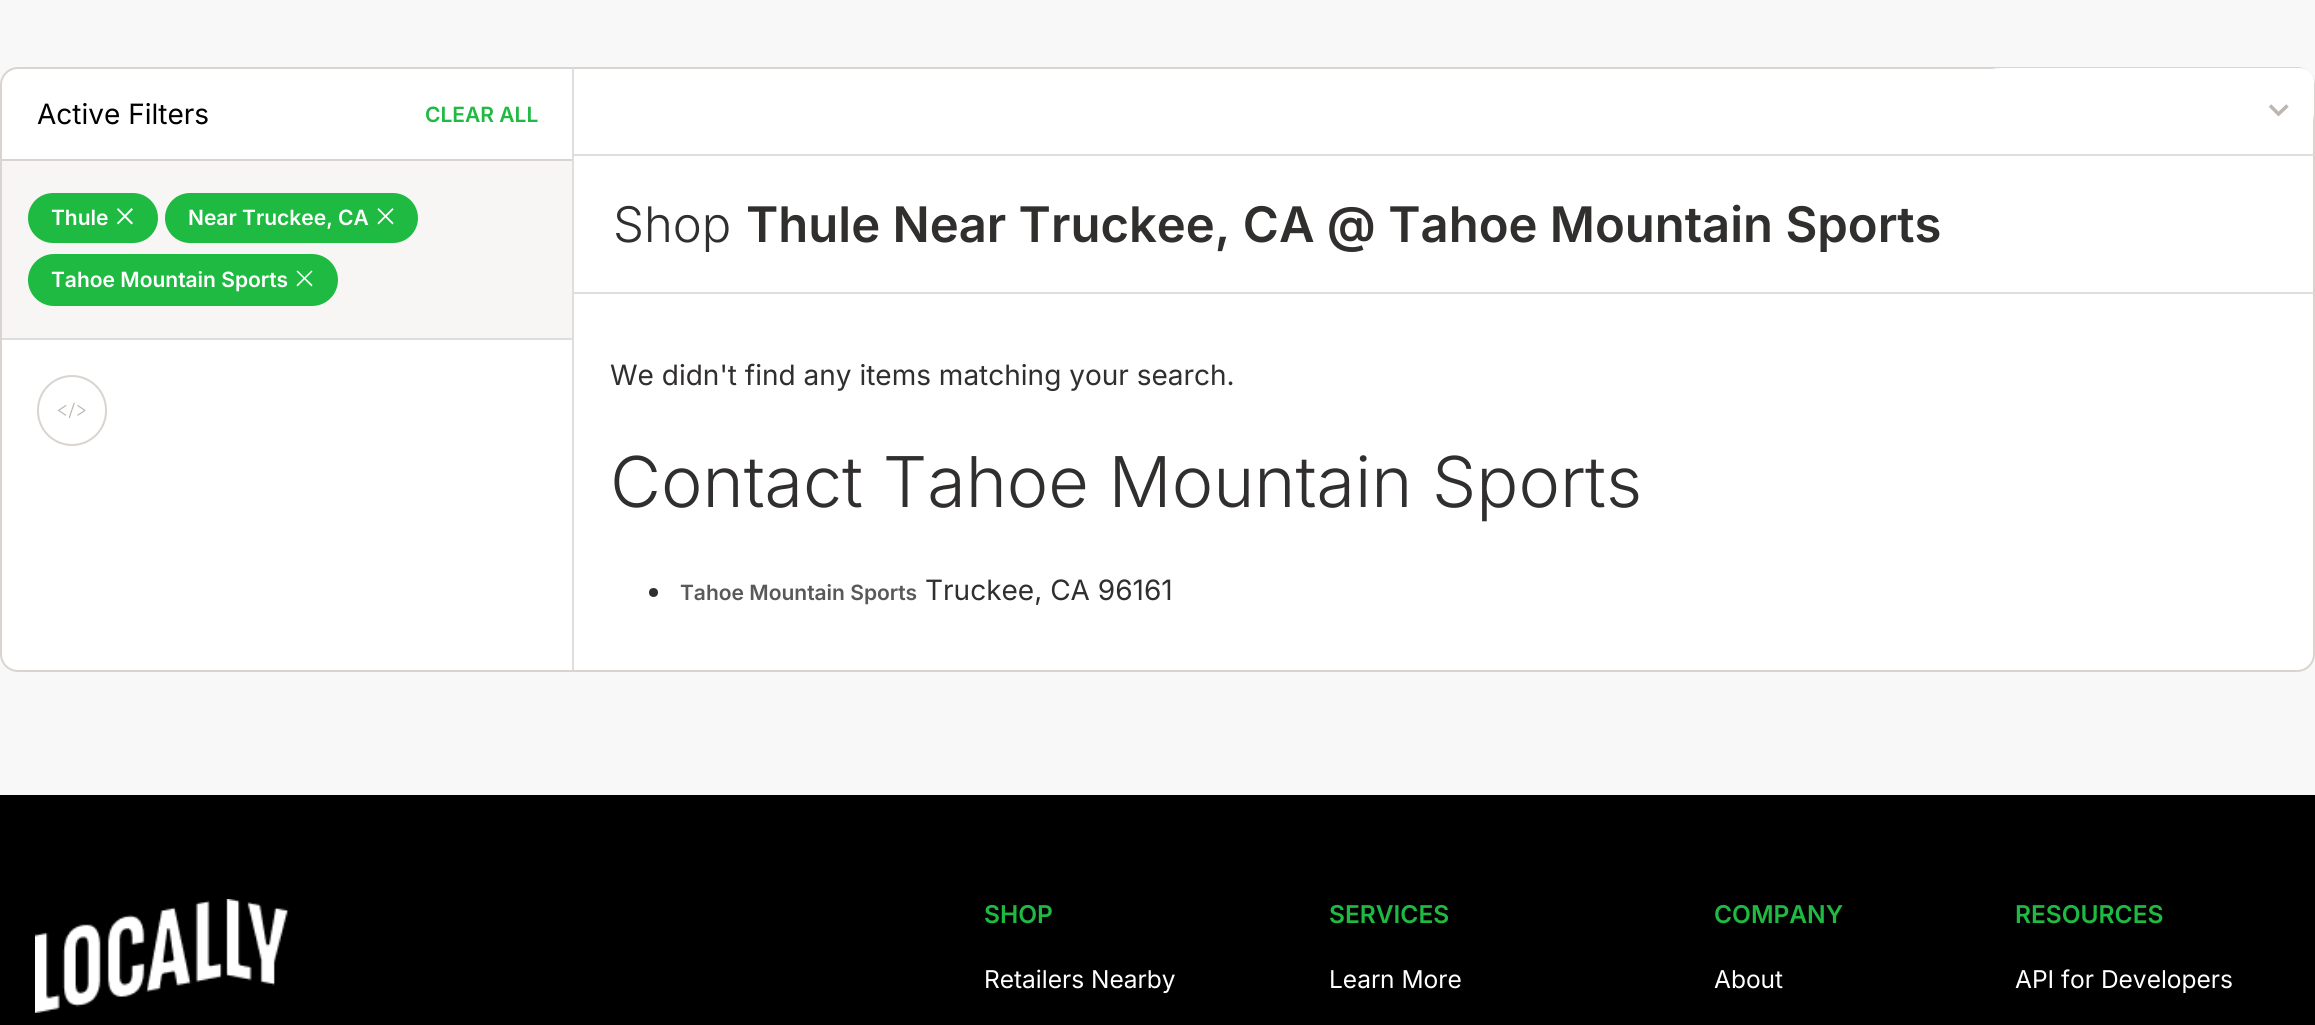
#include <cairo.h>
#include <math.h>
#include <stddef.h>

static cairo_t *c;
static void C(unsigned color){cairo_set_source_rgb(c, (color >> 16) / 255.0, (color >> 8 & 255) / 255.0, (color & 255) / 255.0);}
static void F(const char *family, double size, int italic, int bold){cairo_select_font_face(c, family, italic ? CAIRO_FONT_SLANT_ITALIC : CAIRO_FONT_SLANT_NORMAL,bold ? CAIRO_FONT_WEIGHT_BOLD : CAIRO_FONT_WEIGHT_NORMAL);cairo_set_font_size(c, size);}
static void T(double x, double y, const char *s){cairo_move_to(c, x, y);cairo_show_text(c, s);}
static void R(double x, double y, double w, double h){cairo_rectangle(c, x, y, w, h);cairo_fill(c);}
static void Q(double x, double y, double w, double h, double r){cairo_new_sub_path(c);cairo_arc(c, x + w - r, y + h - r, r, 0, M_PI / 2);cairo_arc(c, x + r, y + h - r, r, M_PI / 2, M_PI);cairo_arc(c, x + r, y + r, r, M_PI, 1.5 * M_PI);cairo_arc(c, x + w - r, y + r, r, 1.5 * M_PI, 2 * M_PI);cairo_close_path(c);}
static void I(const char *path, double x, double y, double w, double h){cairo_surface_t *image = cairo_image_surface_create_from_png(path);cairo_save(c);cairo_set_source_surface(c, image, x, y);cairo_rectangle(c, x, y, w, h);cairo_fill(c);cairo_restore(c);cairo_surface_destroy(image);}
int main(void) {
cairo_surface_t *surface = cairo_image_surface_create(CAIRO_FORMAT_RGB24, 2315, 1025);
c = cairo_create(surface);
cairo_font_options_t *options = cairo_font_options_create();
cairo_font_options_set_hint_metrics(options, CAIRO_HINT_METRICS_OFF);
cairo_font_options_set_hint_style(options, CAIRO_HINT_STYLE_NONE);
cairo_set_font_options(c, options);
cairo_set_miter_limit(c, 4);
C(0xf8f8f8);
cairo_paint(c);
C(0xffffff);
Q(1,68,2313,603,17);
cairo_fill_preserve(c);
C(0xd9d4cf);
cairo_stroke(c);
C(0xdedede);
R(2,338,570,2);
C(0xd9d4cf);
R(2,159,570,2);
F("Inter",28,0,0);
C(0x000000);
T(37,124,"Active Filters");
F("Inter SemiBold",21,0,0);
C(0x1eba42);
T(425,122,"CLEAR ALL");
C(0xf7f6f5);
R(2,161,570,177);
C(0x1eba42);
Q(28,193,130,50,25);
cairo_fill(c);
C(0xffffff);
T(51,225,"Thule");
cairo_new_path(c);
cairo_move_to(c,117,209.5);
cairo_line_to(c,118,208);
cairo_line_to(c,133,223);
cairo_line_to(c,131.5,224.5);
cairo_close_path(c);
cairo_fill(c);
cairo_new_path(c);
cairo_move_to(c,131.5,208);
cairo_line_to(c,133,209.5);
cairo_line_to(c,118,224.5);
cairo_line_to(c,117,223);
cairo_close_path(c);
cairo_fill(c);
C(0x1eba42);
Q(165,193,253,50,25);
cairo_fill(c);
C(0xffffff);
T(188,225,"Near Truckee, CA");
cairo_new_path(c);
cairo_move_to(c,377.5,209.5);
cairo_line_to(c,378.5,208);
cairo_line_to(c,393.5,223);
cairo_line_to(c,392.5,224.5);
cairo_close_path(c);
cairo_fill(c);
cairo_new_path(c);
cairo_move_to(c,392.5,208);
cairo_line_to(c,393.5,209.5);
cairo_line_to(c,378.5,224.5);
cairo_line_to(c,377.5,223);
cairo_close_path(c);
cairo_fill(c);
C(0x1eba42);
Q(28,254,310,52,26);
cairo_fill(c);
C(0xffffff);
T(51,287,"Tahoe Mountain Sports");
cairo_new_path(c);
cairo_move_to(c,296.5,271.5);
cairo_line_to(c,297.5,270.5);
cairo_line_to(c,312.5,285);
cairo_line_to(c,311.5,286.5);
cairo_close_path(c);
cairo_fill(c);
cairo_new_path(c);
cairo_move_to(c,311.5,270.5);
cairo_line_to(c,312.5,271.5);
cairo_line_to(c,297.5,286.5);
cairo_line_to(c,296.5,285);
cairo_close_path(c);
cairo_fill(c);
Q(38,376,68,69,34);
C(0xd9d4cf);
cairo_stroke(c);
I("1.png",58,402,28,17);
C(0xdedede);
R(572,68,2,602);
R(574,154,1740,2);
C(0xffffff);
cairo_new_path(c);
cairo_move_to(c,2001,68);
cairo_line_to(c,2300,68);
cairo_curve_to(c,2307.5,68,2314,74.5,2314,82);
cairo_line_to(c,2314,111);
cairo_curve_to(c,2314,134.5,2294.5,154,2271,154);
cairo_line_to(c,2001,154);
cairo_curve_to(c,1977.5,154,1958,134.5,1958,111);
cairo_curve_to(c,1958,87.5,1977.5,68,2001,68);
cairo_close_path(c);
cairo_fill(c);
cairo_new_path(c);
cairo_move_to(c,2287.5,105.5);
cairo_line_to(c,2278.5,114);
cairo_line_to(c,2270,105.5);
C(0xbeb6ae);
cairo_set_line_width(c,3.5);
cairo_stroke(c);
C(0xdedede);
R(574,292,1740,2);
F("Inter Light",49,0,0);
C(0x312e2e);
T(613,242,"Shop");
F("Inter SemiBold",49,0,0);
T(746,242,"Thule Near Truckee, CA @ Tahoe Mountain Sports");
F("Inter",28,0,0);
T(610,385,"We didn't find any items matching your search.");
F("Inter Light",70,0,0);
T(610,507,"Contact Tahoe Mountain Sports");
cairo_new_path(c);
cairo_arc(c,653.5,592.5,4.5,0,2 * M_PI);
cairo_fill(c);
F("Inter SemiBold",21,0,0);
C(0x595959);
T(680,600,"Tahoe Mountain Sports");
F("Inter",28,0,0);
C(0x312e2e);
T(925,600,"Truckee, CA 96161");
C(0x000000);
R(0,795,2315,230);
I("2.png",35,899,254,114);
F("Inter SemiBold",24.5,0,0);
C(0x1eba42);
T(984,923,"SHOP");
F("Inter",24.5,0,0);
C(0xffffff);
T(984,988,"Retailers Nearby");
F("Inter SemiBold",24.5,0,0);
C(0x1eba42);
T(1329,923,"SERVICES");
F("Inter",24.5,0,0);
C(0xffffff);
T(1329,988,"Learn More");
F("Inter SemiBold",24.5,0,0);
C(0x1eba42);
T(1714,923,"COMPANY");
F("Inter",24.5,0,0);
C(0xffffff);
T(1714,988,"About");
F("Inter SemiBold",24.5,0,0);
C(0x1eba42);
T(2015,923,"RESOURCES");
F("Inter",24.5,0,0);
C(0xffffff);
T(2015,988,"API for Developers");
cairo_surface_write_to_png(surface, "o.png");
cairo_font_options_destroy(options);
cairo_destroy(c);
cairo_surface_destroy(surface);
return 0;
}
